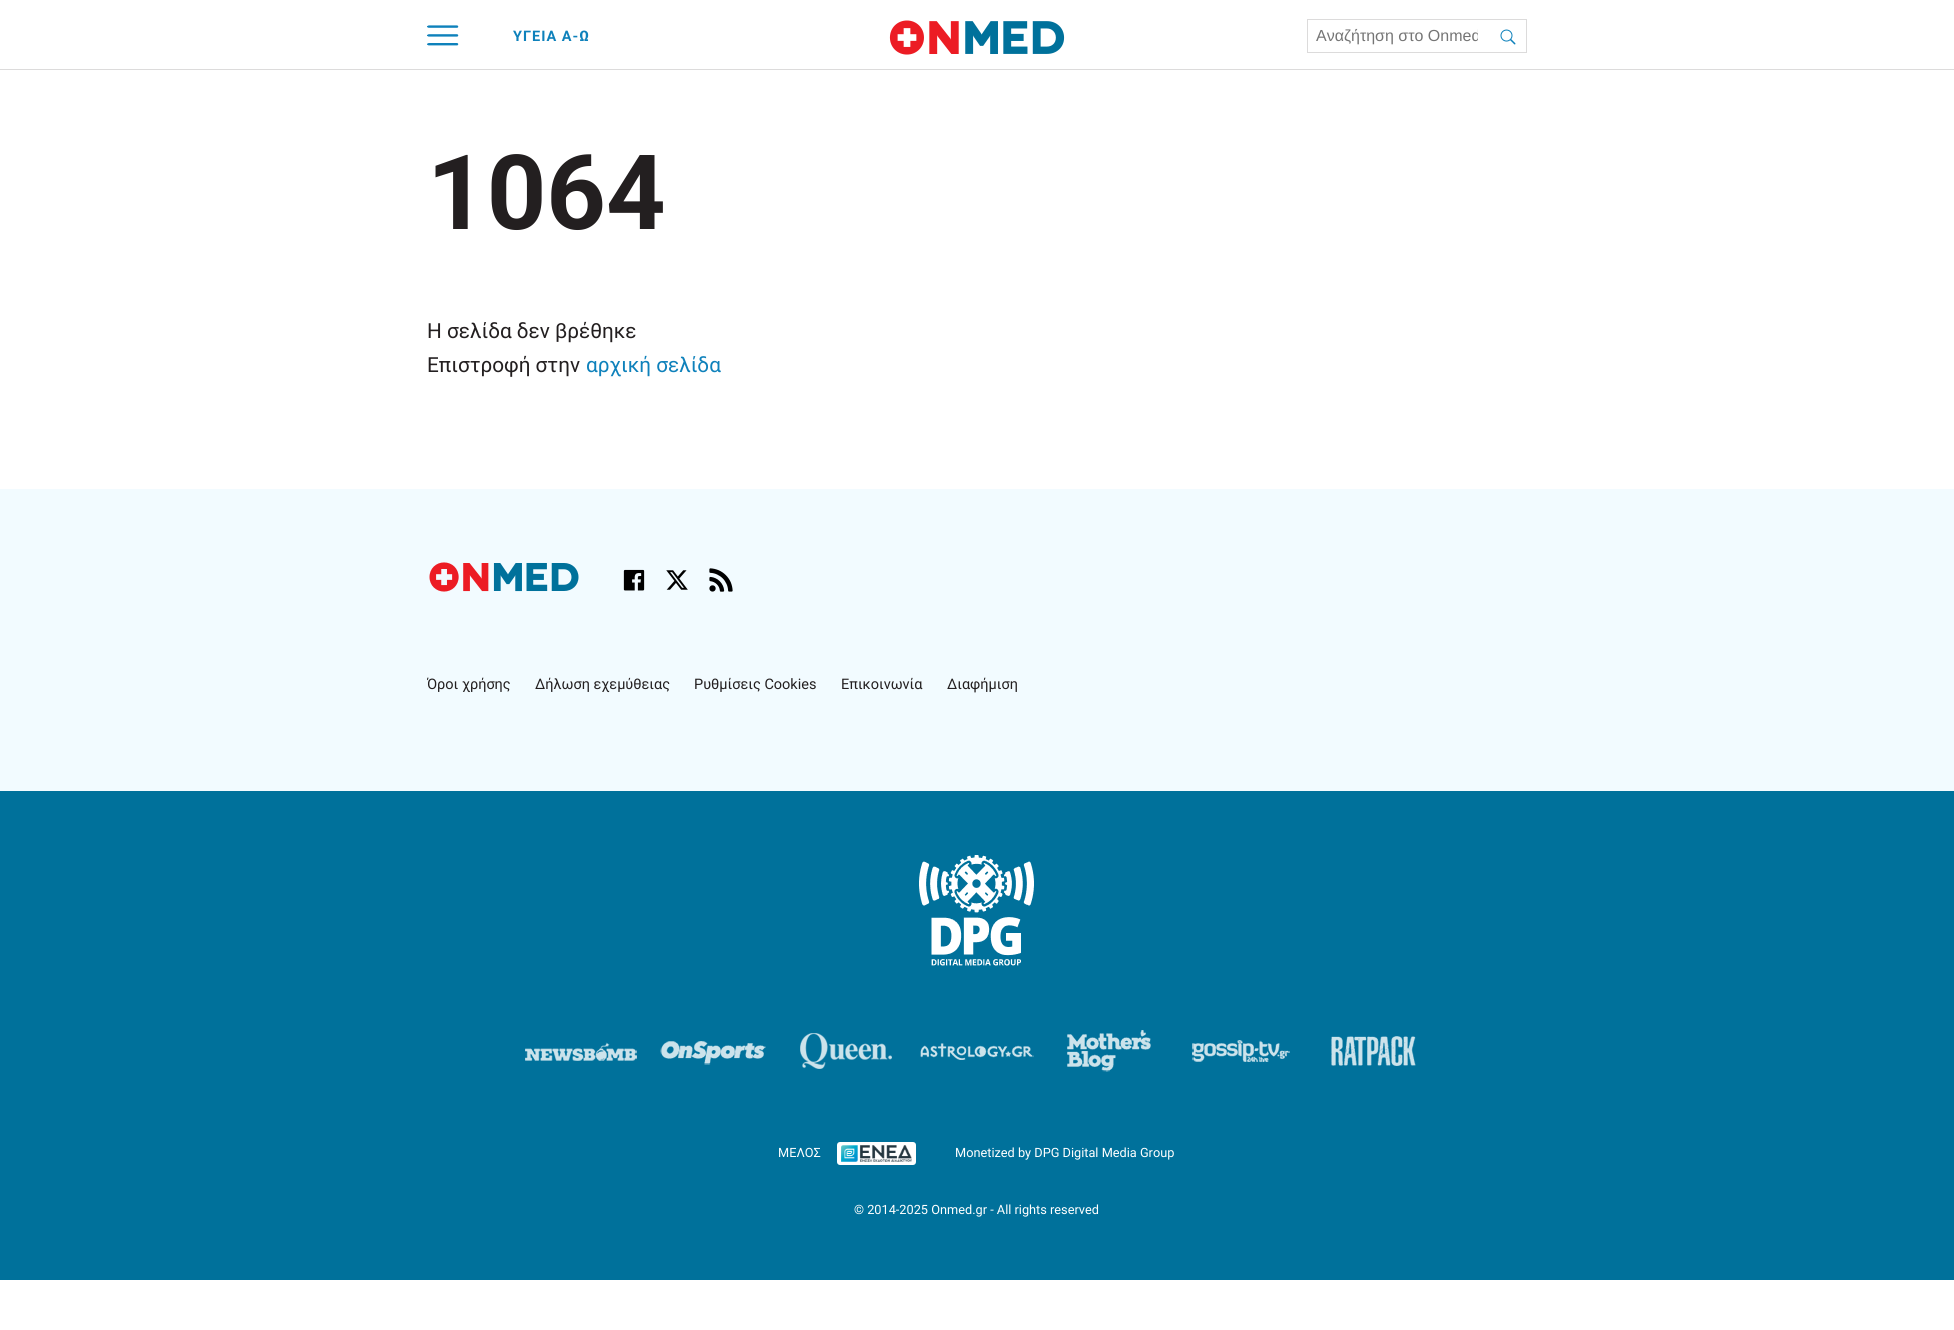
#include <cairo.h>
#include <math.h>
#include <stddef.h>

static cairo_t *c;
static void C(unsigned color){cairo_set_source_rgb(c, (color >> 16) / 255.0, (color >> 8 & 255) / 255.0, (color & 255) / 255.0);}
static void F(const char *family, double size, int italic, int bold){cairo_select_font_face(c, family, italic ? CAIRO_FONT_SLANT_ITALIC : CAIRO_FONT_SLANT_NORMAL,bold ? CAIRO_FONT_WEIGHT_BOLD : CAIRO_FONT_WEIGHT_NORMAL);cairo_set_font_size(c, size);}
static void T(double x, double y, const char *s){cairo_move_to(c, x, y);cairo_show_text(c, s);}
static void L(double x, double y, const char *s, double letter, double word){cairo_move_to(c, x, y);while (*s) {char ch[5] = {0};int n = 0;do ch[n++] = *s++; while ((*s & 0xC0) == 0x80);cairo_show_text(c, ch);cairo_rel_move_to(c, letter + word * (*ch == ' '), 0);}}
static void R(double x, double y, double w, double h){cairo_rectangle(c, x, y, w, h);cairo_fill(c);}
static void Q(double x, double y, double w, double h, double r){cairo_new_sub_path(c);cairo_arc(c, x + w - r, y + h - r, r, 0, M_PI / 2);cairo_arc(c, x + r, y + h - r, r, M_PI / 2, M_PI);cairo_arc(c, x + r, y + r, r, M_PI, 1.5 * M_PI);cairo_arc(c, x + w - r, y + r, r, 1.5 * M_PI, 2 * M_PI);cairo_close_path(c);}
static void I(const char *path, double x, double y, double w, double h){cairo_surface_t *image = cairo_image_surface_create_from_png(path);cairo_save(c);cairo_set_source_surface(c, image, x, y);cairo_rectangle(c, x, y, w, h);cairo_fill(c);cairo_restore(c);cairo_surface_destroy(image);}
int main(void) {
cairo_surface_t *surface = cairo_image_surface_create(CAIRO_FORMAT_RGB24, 1954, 1330);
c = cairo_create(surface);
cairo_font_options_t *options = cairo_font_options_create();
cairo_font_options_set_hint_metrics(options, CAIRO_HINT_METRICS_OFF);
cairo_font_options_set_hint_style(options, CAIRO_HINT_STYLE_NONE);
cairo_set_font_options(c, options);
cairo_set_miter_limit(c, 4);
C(0xffffff);
cairo_paint(c);
I("1.png",427,25,32,21);
F("Roboto",14.5,0,1);
C(0x0e81bb);
L(513,41,"ΥΓΕΙΑ Α-Ω",1,0);
I("2.png",889,20,176,35);
cairo_rectangle(c,1307.5,19.5,219,33);
C(0xdcdbdb);
cairo_set_line_width(c,1);
cairo_stroke(c);
cairo_save(c);
cairo_rectangle(c,1316,27,162,18);
cairo_clip(c);
F("Liberation Sans",16,0,0);
C(0x757575);
T(1316,41,"Αναζήτηση στο Onmed");
cairo_restore(c);
I("3.png",1500,29,16,16);
R(0,69,1954,1);
F("Roboto",104,0,1);
C(0x231f20);
T(427,229,"1064");
F("Roboto",20.75,0,0);
T(427,338,"Η σελίδα δεν βρέθηκε");
T(427,372,"Επιστροφή στην");
C(0x0e81bb);
T(586,372,"αρχική σελίδα");
C(0xf2fbff);
R(0,489,1954,302);
I("4.png",429,562,150,30);
I("5.png",623,569,22,22);
I("6.png",666,570,22,20);
I("7.png",709,568,24,24);
F("Roboto",14.5,0,0);
C(0x231f20);
T(427,689,"Όροι χρήσης");
T(535,689,"Δήλωση εχεμύθειας");
T(694,689,"Ρυθμίσεις Cookies");
T(841,689,"Επικοινωνία");
T(947,689,"Διαφήμιση");
C(0x00719b);
R(0,791,1954,489);
I("8.png",919,855,115,111);
I("9.png",525,1042,112,19);
I("10.png",660,1041,106,24);
I("11.png",800,1033,92,36);
I("12.png",920,1043,114,17);
I("13.png",1067,1030,84,42);
I("14.png",1192,1040,98,22);
I("15.png",1331,1036,85,30);
C(0xffffff);
Q(837,1142,79,23,3);
cairo_fill(c);
F("Roboto",12.75,0,0);
T(778,1157,"ΜΕΛΟΣ");
I("16.png",841,1145,71,17);
T(955,1157,"Monetized by DPG Digital Media Group");
T(854,1214,"© 2014-2025 Onmed.gr - All rights reserved");
cairo_surface_write_to_png(surface, "o.png");
cairo_font_options_destroy(options);
cairo_destroy(c);
cairo_surface_destroy(surface);
return 0;
}
